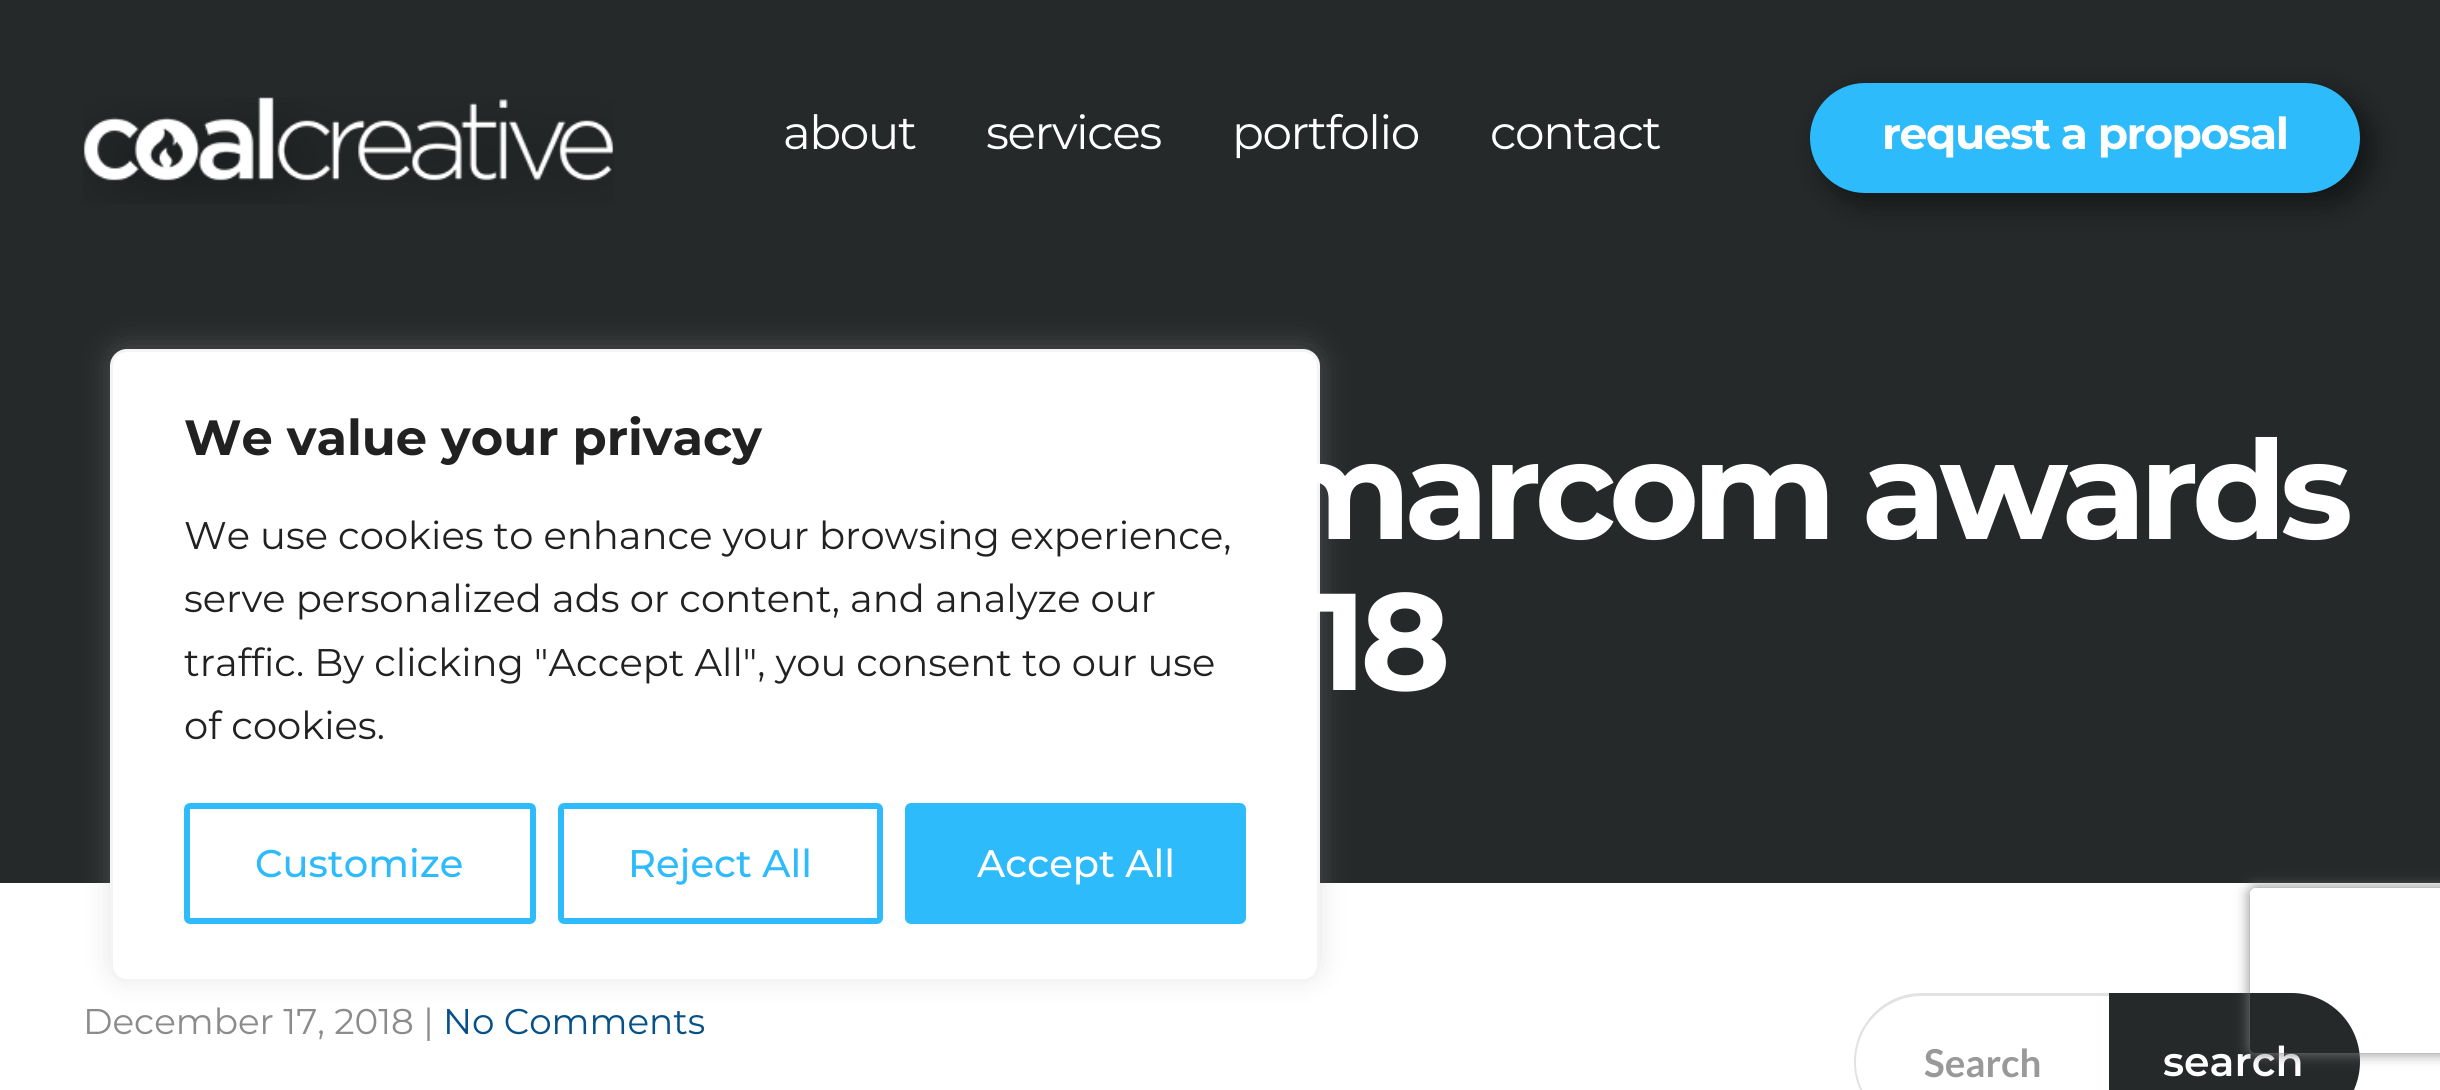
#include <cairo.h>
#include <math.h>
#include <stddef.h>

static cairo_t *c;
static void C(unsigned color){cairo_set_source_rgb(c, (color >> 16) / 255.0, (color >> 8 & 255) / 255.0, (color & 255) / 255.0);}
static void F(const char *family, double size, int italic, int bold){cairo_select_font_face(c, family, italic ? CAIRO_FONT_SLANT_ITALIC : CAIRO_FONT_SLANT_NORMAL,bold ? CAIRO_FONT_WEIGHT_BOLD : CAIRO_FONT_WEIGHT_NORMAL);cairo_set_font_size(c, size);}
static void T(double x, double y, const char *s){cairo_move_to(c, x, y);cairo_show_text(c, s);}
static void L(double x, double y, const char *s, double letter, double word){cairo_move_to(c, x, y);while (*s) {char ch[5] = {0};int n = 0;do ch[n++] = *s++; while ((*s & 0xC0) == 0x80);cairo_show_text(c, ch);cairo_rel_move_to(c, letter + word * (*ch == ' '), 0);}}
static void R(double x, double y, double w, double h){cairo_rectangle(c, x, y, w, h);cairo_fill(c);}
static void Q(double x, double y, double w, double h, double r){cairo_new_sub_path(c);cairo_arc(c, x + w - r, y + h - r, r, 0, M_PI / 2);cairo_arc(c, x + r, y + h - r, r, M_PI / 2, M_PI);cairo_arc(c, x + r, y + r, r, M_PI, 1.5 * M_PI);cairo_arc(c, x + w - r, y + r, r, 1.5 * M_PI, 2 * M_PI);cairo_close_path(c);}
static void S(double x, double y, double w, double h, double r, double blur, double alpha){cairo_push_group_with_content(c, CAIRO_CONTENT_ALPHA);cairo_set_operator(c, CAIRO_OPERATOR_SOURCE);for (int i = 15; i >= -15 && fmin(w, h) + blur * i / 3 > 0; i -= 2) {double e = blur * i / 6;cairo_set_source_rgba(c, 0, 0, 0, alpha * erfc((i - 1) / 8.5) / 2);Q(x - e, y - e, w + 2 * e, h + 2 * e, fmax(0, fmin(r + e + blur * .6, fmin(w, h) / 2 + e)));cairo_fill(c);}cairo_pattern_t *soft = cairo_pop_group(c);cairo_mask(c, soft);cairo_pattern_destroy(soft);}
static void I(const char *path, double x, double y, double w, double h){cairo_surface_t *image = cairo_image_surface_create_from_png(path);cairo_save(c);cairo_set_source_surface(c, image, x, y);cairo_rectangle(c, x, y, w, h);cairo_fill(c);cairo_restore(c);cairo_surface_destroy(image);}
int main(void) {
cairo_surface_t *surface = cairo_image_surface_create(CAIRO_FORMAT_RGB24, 2440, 1090);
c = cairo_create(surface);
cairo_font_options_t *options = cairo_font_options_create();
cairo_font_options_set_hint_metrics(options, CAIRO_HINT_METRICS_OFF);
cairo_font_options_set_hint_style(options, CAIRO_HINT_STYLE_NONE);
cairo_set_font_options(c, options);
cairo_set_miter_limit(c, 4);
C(0xffffff);
cairo_paint(c);
C(0x252929);
R(0,0,2440,883);
I("1.png",83,97,531,107);
F("Montserrat",47,0,0);
C(0xffffff);
L(783,149,"about",-1.4,0);
L(986,149,"services",-1.4,0);
L(1232,149,"portfolio",-1.4,0);
L(1490,149,"contact",-1.4,0);
C(0x000000);
S(1821,94,550,110,55,14,.5);
C(0x2dbbfc);
Q(1811.5,84.5,547,107,53.5);
cairo_fill_preserve(c);
cairo_set_line_width(c,3);
cairo_stroke(c);
F("Montserrat",44,0,1);
C(0xffffff);
L(1882,149,"request a proposal",-1.4,0);
C(0xacabab);
S(110,347,1210,632,17,14,.3);
C(0xffffff);
Q(111.5,350.5,1207,630,15.5);
cairo_fill_preserve(c);
C(0xf4f4f4);
cairo_stroke(c);
F("Montserrat",49.5,0,1);
C(0x212121);
T(184,455,"We value your privacy");
F("Montserrat",38.5,0,0);
T(184,549,"We use cookies to enhance your browsing experience,");
T(184,612,"serve personalized ads or content, and analyze our");
T(184,676,"traffic. By clicking \"Accept All\", you consent to our use");
T(184,739,"of cookies.");
Q(187,806,346,115,3);
C(0x2dbbfc);
cairo_set_line_width(c,6);
cairo_stroke(c);
F("Montserrat Medium",38.5,0,0);
T(255,877,"Customize");
Q(561,806,319,115,3);
cairo_stroke(c);
T(628,877,"Reject All");
Q(908,806,335,115,3);
cairo_fill_preserve(c);
cairo_stroke(c);
C(0xffffff);
T(977,877,"Accept All");
F("Montserrat",137.5,0,1);
L(1267,539,"marcom awards",-6.9,0);
L(1313,690,"18",-6.9,0);
F("Montserrat",35.75,0,0);
C(0x8b8b8b);
T(83,1034,"December 17, 2018 |");
C(0x045089);
T(443,1034,"No Comments");
C(0xe2e2e2);
cairo_set_fill_rule(c,CAIRO_FILL_RULE_EVEN_ODD);
cairo_new_path(c);
cairo_move_to(c,1922,993);
cairo_line_to(c,2109,993);
cairo_line_to(c,2109,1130);
cairo_line_to(c,1922,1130);
cairo_curve_to(c,1884,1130,1854,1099,1854,1062);
cairo_curve_to(c,1854,1024,1884,993,1922,993);
cairo_close_path(c);
cairo_move_to(c,1922,996);
cairo_line_to(c,2109,996);
cairo_line_to(c,2109,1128);
cairo_line_to(c,1922,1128);
cairo_curve_to(c,1886,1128,1856,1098,1856,1062);
cairo_curve_to(c,1856,1025,1886,996,1922,996);
cairo_close_path(c);
cairo_fill(c);
F("Lato",38.5,0,1);
C(0x999999);
T(1924,1077,"Search");
C(0x252929);
cairo_new_path(c);
cairo_move_to(c,2109,993);
cairo_line_to(c,2291.5,993);
cairo_curve_to(c,2329.5,993,2360,1023.5,2360,1061.5);
cairo_curve_to(c,2360,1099.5,2329.5,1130,2291.5,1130);
cairo_line_to(c,2109,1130);
cairo_close_path(c);
cairo_fill(c);
F("Montserrat SemiBold",41,0,0);
C(0xffffff);
T(2163,1076,"search");
cairo_save(c);
cairo_new_path(c);
cairo_move_to(c,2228,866);
cairo_line_to(c,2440,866);
cairo_line_to(c,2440,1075);
cairo_line_to(c,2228,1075);
cairo_close_path(c);
cairo_move_to(c,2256,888);
cairo_line_to(c,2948,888);
cairo_curve_to(c,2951.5,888,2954,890.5,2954,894);
cairo_line_to(c,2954,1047);
cairo_curve_to(c,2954,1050.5,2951.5,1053,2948,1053);
cairo_line_to(c,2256,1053);
cairo_curve_to(c,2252.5,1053,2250,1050.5,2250,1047);
cairo_line_to(c,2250,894);
cairo_curve_to(c,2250,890.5,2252.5,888,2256,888);
cairo_close_path(c);
cairo_clip(c);
C(0x808080);
S(2250,888,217,165,6,7,1);
cairo_restore(c);
cairo_surface_write_to_png(surface, "o.png");
cairo_font_options_destroy(options);
cairo_destroy(c);
cairo_surface_destroy(surface);
return 0;
}
